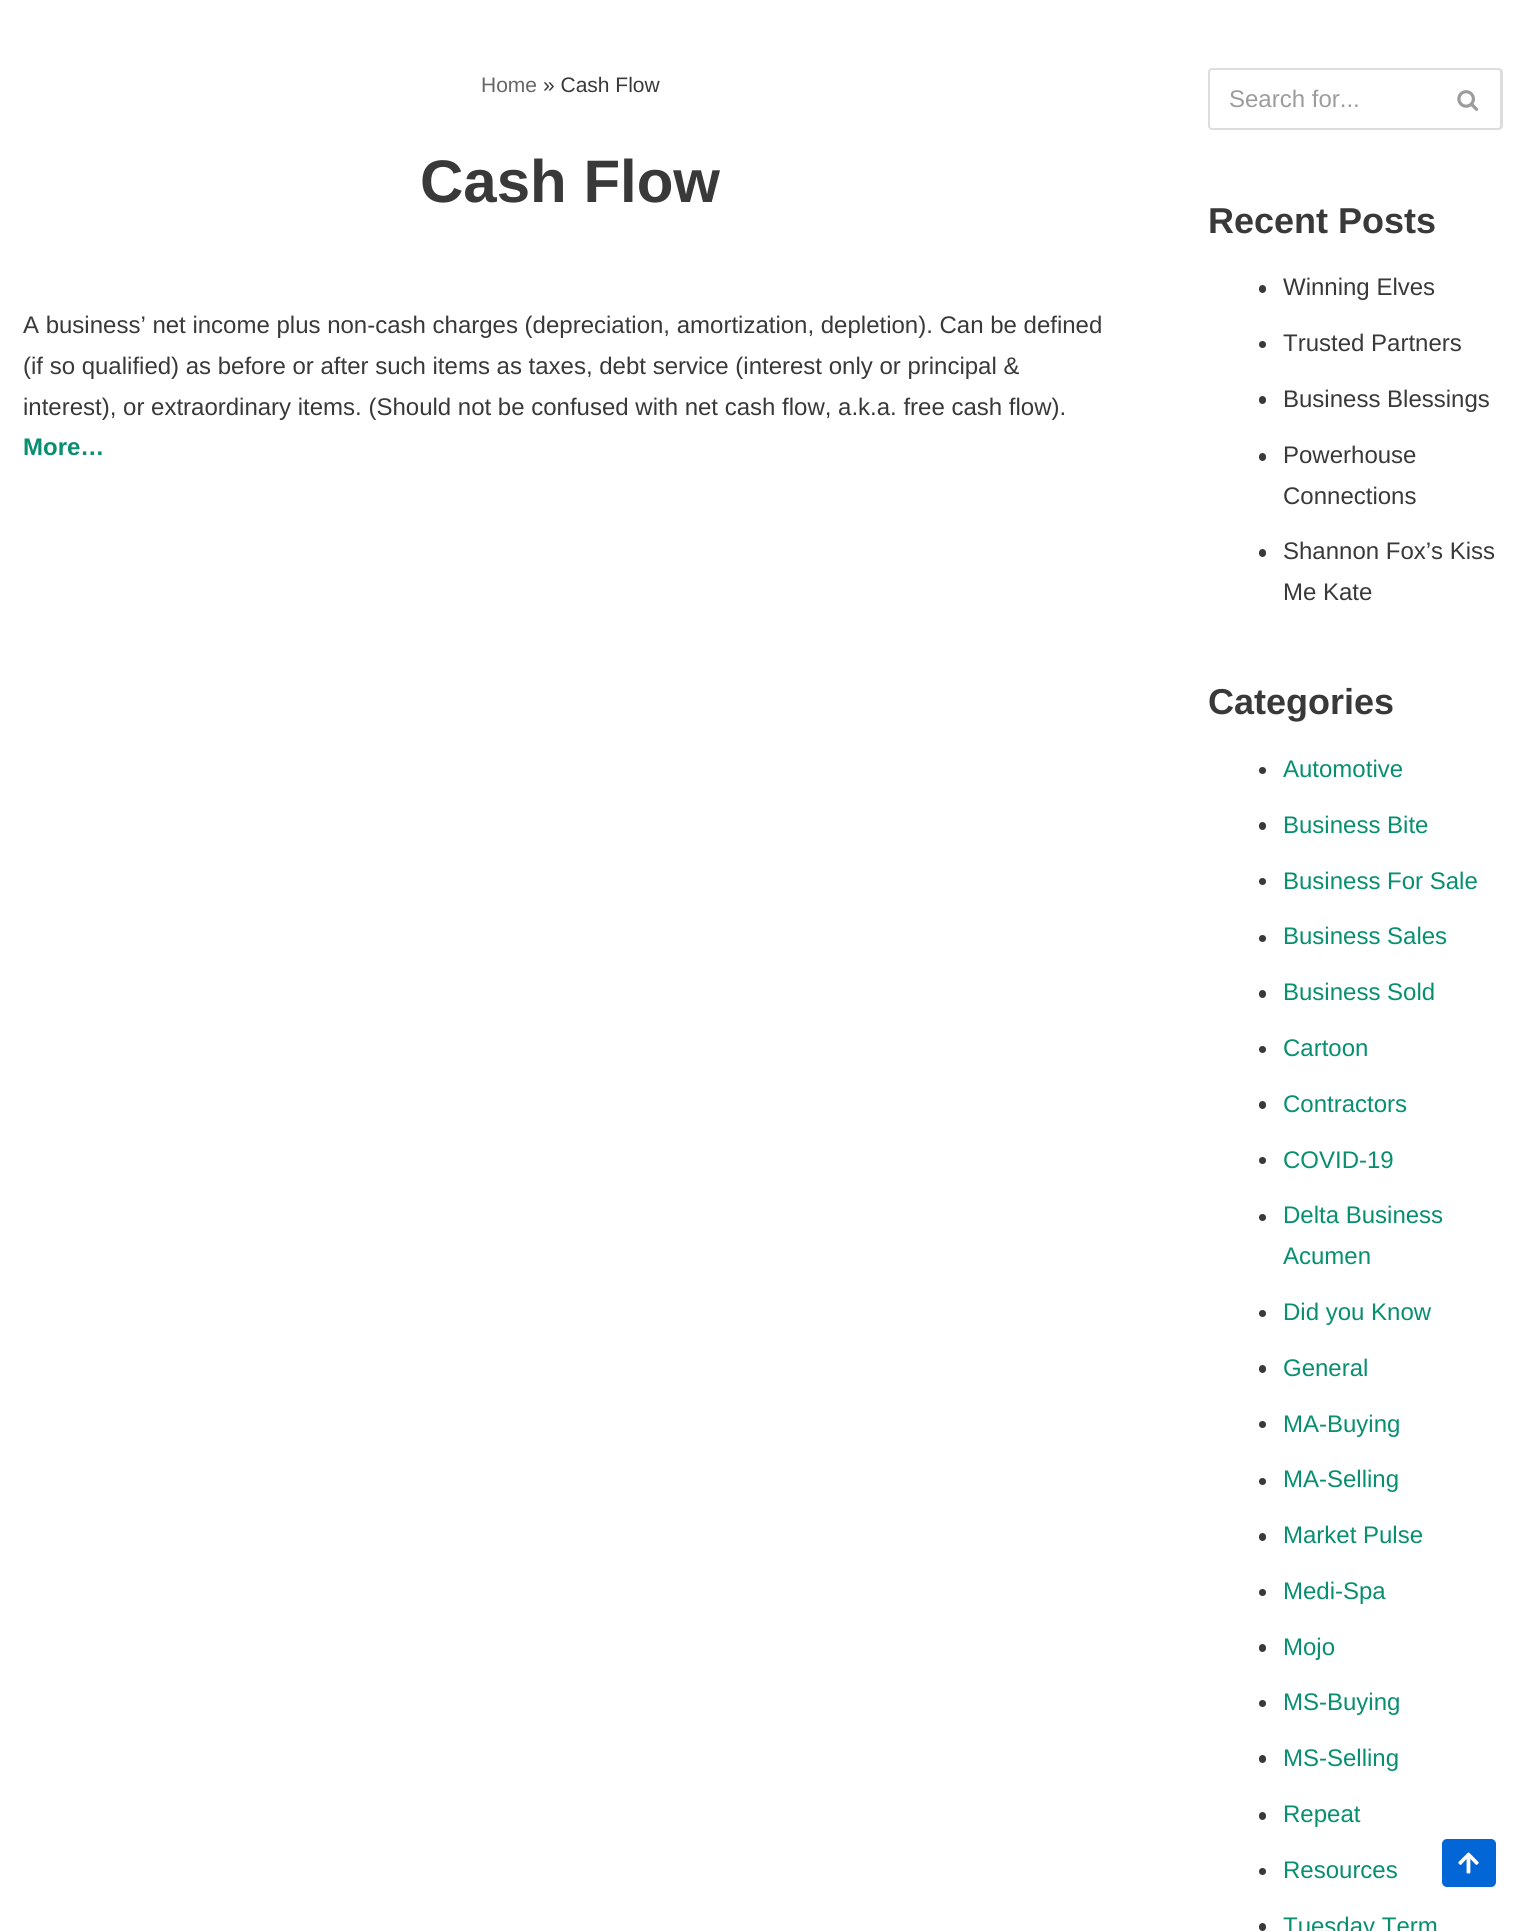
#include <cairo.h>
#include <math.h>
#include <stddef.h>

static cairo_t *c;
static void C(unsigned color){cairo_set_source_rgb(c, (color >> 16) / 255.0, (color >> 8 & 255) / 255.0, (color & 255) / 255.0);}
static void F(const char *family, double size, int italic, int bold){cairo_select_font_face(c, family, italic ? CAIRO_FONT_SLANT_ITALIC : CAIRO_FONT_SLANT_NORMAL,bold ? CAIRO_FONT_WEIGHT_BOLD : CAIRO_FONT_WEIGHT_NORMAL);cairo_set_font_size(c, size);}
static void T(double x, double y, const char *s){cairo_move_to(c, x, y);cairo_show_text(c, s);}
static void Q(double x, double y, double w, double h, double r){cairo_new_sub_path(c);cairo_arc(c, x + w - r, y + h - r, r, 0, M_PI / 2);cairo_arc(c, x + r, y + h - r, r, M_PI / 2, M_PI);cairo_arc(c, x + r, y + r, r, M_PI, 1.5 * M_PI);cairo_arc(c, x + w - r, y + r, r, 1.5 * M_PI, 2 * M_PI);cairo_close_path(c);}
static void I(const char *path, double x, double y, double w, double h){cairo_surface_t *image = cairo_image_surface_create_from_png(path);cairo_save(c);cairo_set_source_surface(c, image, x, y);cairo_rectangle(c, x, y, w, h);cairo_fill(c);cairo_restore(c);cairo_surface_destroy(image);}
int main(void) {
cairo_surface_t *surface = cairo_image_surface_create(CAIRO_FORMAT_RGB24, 1525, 1931);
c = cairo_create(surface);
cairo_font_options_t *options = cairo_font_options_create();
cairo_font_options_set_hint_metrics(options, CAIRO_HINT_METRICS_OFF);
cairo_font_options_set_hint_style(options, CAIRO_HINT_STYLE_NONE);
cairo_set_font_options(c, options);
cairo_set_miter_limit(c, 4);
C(0xffffff);
cairo_paint(c);
F("Liberation Sans",21,0,0);
C(0x676767);
T(481,92,"Home");
C(0x393939);
T(543,92,"» Cash Flow");
F("Liberation Sans",60,0,1);
T(420,202,"Cash Flow");
F("Liberation Sans",24,0,0);
T(23,333,"A business’ net income plus non-cash charges (depreciation, amortization, depletion). Can be defined");
T(23,374,"(if so qualified) as before or after such items as taxes, debt service (interest only or principal &");
T(23,415,"interest), or extraordinary items. (Should not be confused with net cash flow, a.k.a. free cash flow).");
F("Liberation Sans",24,0,1);
C(0x078f70);
T(23,455,"More…");
C(0xdddddd);
cairo_set_fill_rule(c,CAIRO_FILL_RULE_EVEN_ODD);
cairo_new_path(c);
cairo_move_to(c,1212,68);
cairo_line_to(c,1436,68);
cairo_line_to(c,1436,130);
cairo_line_to(c,1212,130);
cairo_curve_to(c,1210,130,1208,128,1208,126);
cairo_line_to(c,1208,72);
cairo_curve_to(c,1208,70,1210,68,1212,68);
cairo_close_path(c);
cairo_move_to(c,1212,70);
cairo_line_to(c,1436,70);
cairo_line_to(c,1436,128);
cairo_line_to(c,1212,128);
cairo_curve_to(c,1211,128,1210,127,1210,126);
cairo_line_to(c,1210,72);
cairo_curve_to(c,1210,71,1211,70,1212,70);
cairo_close_path(c);
cairo_fill(c);
F("Liberation Sans",24,0,0);
C(0x9c9c9c);
T(1229,107,"Search for...");
C(0xdddddd);
cairo_new_path(c);
cairo_move_to(c,1436,68);
cairo_line_to(c,1498,68);
cairo_curve_to(c,1501,68,1503,70,1503,72);
cairo_line_to(c,1503,126);
cairo_curve_to(c,1503,128,1501,130,1498,130);
cairo_line_to(c,1436,130);
cairo_close_path(c);
cairo_move_to(c,1436,70);
cairo_line_to(c,1498,70);
cairo_curve_to(c,1499,70,1500,71,1500,72);
cairo_line_to(c,1500,126);
cairo_curve_to(c,1500,127,1499,128,1498,128);
cairo_line_to(c,1436,128);
cairo_close_path(c);
cairo_fill(c);
I("1.png",1457,90,22,21);
F("Liberation Sans",36,0,1);
C(0x393939);
T(1208,233,"Recent Posts");
Q(1259,285,7,8,3.5);
cairo_fill(c);
F("Liberation Sans",24,0,0);
T(1283,295,"Winning Elves");
cairo_new_path(c);
cairo_arc(c,1262.5,344.5,3.5,0,2 * M_PI);
cairo_fill(c);
T(1283,351,"Trusted Partners");
Q(1259,396,7,8,3.5);
cairo_fill(c);
T(1283,407,"Business Blessings");
Q(1259,453,7,8,3.5);
cairo_fill(c);
T(1283,463,"Powerhouse");
T(1283,504,"Connections");
Q(1259,549,7,8,3.5);
cairo_fill(c);
T(1283,559,"Shannon Fox’s Kiss");
T(1283,600,"Me Kate");
F("Liberation Sans",36,0,1);
T(1208,714,"Categories");
cairo_new_path(c);
cairo_arc(c,1262.5,770.5,3.5,0,2 * M_PI);
cairo_fill(c);
F("Liberation Sans",24,0,0);
C(0x078f70);
T(1283,777,"Automotive");
C(0x393939);
Q(1259,822,7,8,3.5);
cairo_fill(c);
C(0x078f70);
T(1283,833,"Business Bite");
C(0x393939);
cairo_new_path(c);
cairo_arc(c,1262.5,881.5,3.5,0,2 * M_PI);
cairo_fill(c);
C(0x078f70);
T(1283,889,"Business For Sale");
C(0x393939);
cairo_new_path(c);
cairo_arc(c,1262.5,938.5,3.5,0,2 * M_PI);
cairo_fill(c);
C(0x078f70);
T(1283,944,"Business Sales");
C(0x393939);
Q(1259,990,7,8,3.5);
cairo_fill(c);
C(0x078f70);
T(1283,1000,"Business Sold");
C(0x393939);
cairo_new_path(c);
cairo_arc(c,1262.5,1049.5,3.5,0,2 * M_PI);
cairo_fill(c);
C(0x078f70);
T(1283,1056,"Cartoon");
C(0x393939);
Q(1259,1101,7,8,3.5);
cairo_fill(c);
C(0x078f70);
T(1283,1112,"Contractors");
C(0x393939);
cairo_new_path(c);
cairo_arc(c,1262.5,1160.5,3.5,0,2 * M_PI);
cairo_fill(c);
C(0x078f70);
T(1283,1168,"COVID-19");
C(0x393939);
cairo_new_path(c);
cairo_arc(c,1262.5,1217.5,3.5,0,2 * M_PI);
cairo_fill(c);
C(0x078f70);
T(1283,1223,"Delta Business");
T(1283,1264,"Acumen");
C(0x393939);
cairo_new_path(c);
cairo_arc(c,1262.5,1313.5,3.5,0,2 * M_PI);
cairo_fill(c);
C(0x078f70);
T(1283,1320,"Did you Know");
C(0x393939);
Q(1259,1365,7,8,3.5);
cairo_fill(c);
C(0x078f70);
T(1283,1376,"General");
C(0x393939);
cairo_new_path(c);
cairo_arc(c,1262.5,1424.5,3.5,0,2 * M_PI);
cairo_fill(c);
C(0x078f70);
T(1283,1432,"MA-Buying");
C(0x393939);
cairo_new_path(c);
cairo_arc(c,1262.5,1481.5,3.5,0,2 * M_PI);
cairo_fill(c);
C(0x078f70);
T(1283,1487,"MA-Selling");
C(0x393939);
Q(1259,1533,7,8,3.5);
cairo_fill(c);
C(0x078f70);
T(1283,1543,"Market Pulse");
C(0x393939);
cairo_new_path(c);
cairo_arc(c,1262.5,1592.5,3.5,0,2 * M_PI);
cairo_fill(c);
C(0x078f70);
T(1283,1599,"Medi-Spa");
C(0x393939);
Q(1259,1644,7,8,3.5);
cairo_fill(c);
C(0x078f70);
T(1283,1655,"Mojo");
C(0x393939);
cairo_new_path(c);
cairo_arc(c,1262.5,1703.5,3.5,0,2 * M_PI);
cairo_fill(c);
C(0x078f70);
T(1283,1710,"MS-Buying");
C(0x393939);
Q(1259,1755,7,8,3.5);
cairo_fill(c);
C(0x078f70);
T(1283,1766,"MS-Selling");
C(0x393939);
Q(1259,1812,7,8,3.5);
cairo_fill(c);
C(0x078f70);
T(1283,1822,"Repeat");
C(0x393939);
cairo_new_path(c);
cairo_arc(c,1262.5,1871.5,3.5,0,2 * M_PI);
cairo_fill(c);
C(0x078f70);
T(1283,1878,"Resources");
C(0x393939);
Q(1259,1923,7,8,3.5);
cairo_fill(c);
C(0x078f70);
T(1283,1934,"Tuesday Term");
C(0x0366d6);
Q(1442,1839,54,48,5);
cairo_fill(c);
I("2.png",1458,1852,21,22);
cairo_surface_write_to_png(surface, "o.png");
cairo_font_options_destroy(options);
cairo_destroy(c);
cairo_surface_destroy(surface);
return 0;
}
